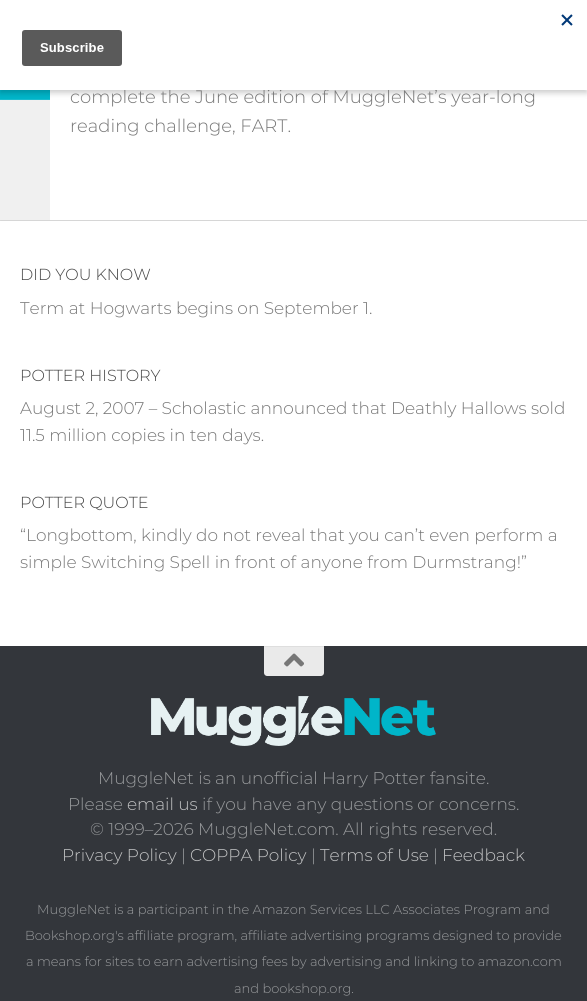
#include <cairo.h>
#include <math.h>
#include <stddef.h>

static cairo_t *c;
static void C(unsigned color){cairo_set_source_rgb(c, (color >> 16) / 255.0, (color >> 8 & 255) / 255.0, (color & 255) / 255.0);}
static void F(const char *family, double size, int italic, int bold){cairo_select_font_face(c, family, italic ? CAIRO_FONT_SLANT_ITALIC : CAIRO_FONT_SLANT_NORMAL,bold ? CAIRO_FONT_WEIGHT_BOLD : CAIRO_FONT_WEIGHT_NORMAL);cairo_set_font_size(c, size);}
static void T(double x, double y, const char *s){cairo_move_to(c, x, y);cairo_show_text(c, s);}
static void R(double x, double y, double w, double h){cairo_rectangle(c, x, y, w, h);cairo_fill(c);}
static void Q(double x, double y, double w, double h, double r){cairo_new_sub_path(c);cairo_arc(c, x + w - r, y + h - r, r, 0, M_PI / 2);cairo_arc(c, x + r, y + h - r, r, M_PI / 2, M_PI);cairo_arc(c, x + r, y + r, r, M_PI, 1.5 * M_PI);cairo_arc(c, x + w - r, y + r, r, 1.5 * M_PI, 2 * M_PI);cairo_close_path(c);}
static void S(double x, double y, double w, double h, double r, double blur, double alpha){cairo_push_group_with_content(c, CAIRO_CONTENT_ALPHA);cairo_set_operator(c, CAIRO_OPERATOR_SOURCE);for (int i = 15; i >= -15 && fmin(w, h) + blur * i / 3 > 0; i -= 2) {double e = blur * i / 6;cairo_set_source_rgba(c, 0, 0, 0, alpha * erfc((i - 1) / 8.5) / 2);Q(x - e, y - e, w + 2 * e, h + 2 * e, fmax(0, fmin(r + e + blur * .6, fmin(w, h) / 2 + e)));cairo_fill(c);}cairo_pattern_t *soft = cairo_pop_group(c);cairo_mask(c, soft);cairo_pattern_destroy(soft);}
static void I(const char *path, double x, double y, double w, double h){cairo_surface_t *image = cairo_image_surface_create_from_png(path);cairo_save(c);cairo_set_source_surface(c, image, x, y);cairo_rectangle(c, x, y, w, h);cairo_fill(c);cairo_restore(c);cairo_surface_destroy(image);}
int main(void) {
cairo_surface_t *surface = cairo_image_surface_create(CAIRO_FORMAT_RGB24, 587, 1001);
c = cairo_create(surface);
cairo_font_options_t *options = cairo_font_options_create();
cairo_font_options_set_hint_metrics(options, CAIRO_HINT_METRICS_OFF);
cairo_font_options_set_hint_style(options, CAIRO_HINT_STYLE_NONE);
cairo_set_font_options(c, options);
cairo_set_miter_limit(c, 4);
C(0xeaeaea);
cairo_paint(c);
C(0x000000);
S(0,-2,587,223,0,.5,.1);
C(0xffffff);
R(50,90,537,130);
C(0xf0f0f0);
R(0,100,50,120);
C(0x00b5c9);
R(0,90,50,9);
C(0x1abcce);
R(0,99,50,1);
C(0x000000);
S(0,3,587,90,0,3,.2);
F("Montserrat Thin",18,0,0);
C(0x777777);
T(70,103,"complete the June edition of MuggleNet’s year-long");
C(0xffffff);
R(0,0,587,90);
I("1.png",22,14,551,52);
C(0x777777);
T(70,132,"reading challenge, FART.");
C(0xffffff);
R(0,221,587,425);
F("Montserrat Thin",16,0,0);
C(0x444444);
T(20,280,"DID YOU KNOW");
F("Montserrat Thin",16.95,0,0);
C(0x777777);
T(20,314,"Term at Hogwarts begins on September 1.");
F("Montserrat Thin",16,0,0);
C(0x444444);
T(20,381,"POTTER HISTORY");
F("Montserrat Thin",16.95,0,0);
C(0x777777);
T(20,414,"August 2, 2007 – Scholastic announced that Deathly Hallows sold");
T(20,441,"11.5 million copies in ten days.");
F("Montserrat Thin",16,0,0);
C(0x444444);
T(20,508,"POTTER QUOTE");
F("Montserrat Thin",16.95,0,0);
C(0x777777);
T(20,541,"“Longbottom, kindly do not reveal that you can’t even perform a");
T(20,568,"simple Switching Spell in front of anyone from Durmstrang!”");
C(0x33363b);
R(0,646,587,355);
C(0xeaeaea);
cairo_new_path(c);
cairo_move_to(c,264,646);
cairo_line_to(c,324,646);
cairo_line_to(c,324,673);
cairo_curve_to(c,324,674.5,322.5,676,321,676);
cairo_line_to(c,267,676);
cairo_curve_to(c,265.5,676,264,674.5,264,673);
cairo_close_path(c);
cairo_fill(c);
C(0xdedede);
R(264,646,60,1);
I("2.png",284,653,20,14);
I("3.png",151,696,285,50);
C(0x999b9d);
T(98,784,"MuggleNet is an unofficial Harry Potter fansite.");
T(68,810,"Please");
C(0xc2c3c4);
T(127,810,"email us");
C(0x999b9d);
T(202,810,"if you have any questions or concerns.");
T(90,835,"© 1999–2026 MuggleNet.com. All rights reserved.");
C(0xc2c3c4);
T(62,861,"Privacy Policy");
C(0x999b9d);
T(181,861,"|");
C(0xc2c3c4);
T(190,861,"COPPA Policy");
C(0x999b9d);
T(311,861,"|");
C(0xc2c3c4);
T(320,861,"Terms of Use");
C(0x999b9d);
T(433,861,"|");
C(0xc2c3c4);
T(442,861,"Feedback");
F("Montserrat Thin",13,0,0);
C(0x999b9d);
T(37,914,"MuggleNet is a participant in the Amazon Services LLC Associates Program and");
T(25,940,"Bookshop.org's affiliate program, affiliate advertising programs designed to provide");
T(26,966,"a means for sites to earn advertising fees by advertising and linking to amazon.com");
T(234,993,"and bookshop.org.");
cairo_surface_write_to_png(surface, "o.png");
cairo_font_options_destroy(options);
cairo_destroy(c);
cairo_surface_destroy(surface);
return 0;
}
